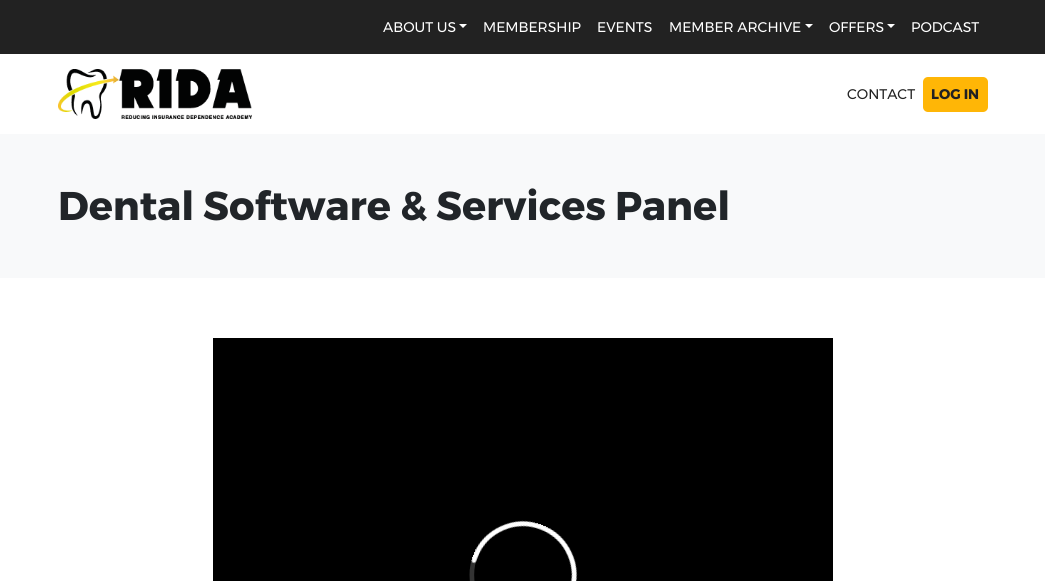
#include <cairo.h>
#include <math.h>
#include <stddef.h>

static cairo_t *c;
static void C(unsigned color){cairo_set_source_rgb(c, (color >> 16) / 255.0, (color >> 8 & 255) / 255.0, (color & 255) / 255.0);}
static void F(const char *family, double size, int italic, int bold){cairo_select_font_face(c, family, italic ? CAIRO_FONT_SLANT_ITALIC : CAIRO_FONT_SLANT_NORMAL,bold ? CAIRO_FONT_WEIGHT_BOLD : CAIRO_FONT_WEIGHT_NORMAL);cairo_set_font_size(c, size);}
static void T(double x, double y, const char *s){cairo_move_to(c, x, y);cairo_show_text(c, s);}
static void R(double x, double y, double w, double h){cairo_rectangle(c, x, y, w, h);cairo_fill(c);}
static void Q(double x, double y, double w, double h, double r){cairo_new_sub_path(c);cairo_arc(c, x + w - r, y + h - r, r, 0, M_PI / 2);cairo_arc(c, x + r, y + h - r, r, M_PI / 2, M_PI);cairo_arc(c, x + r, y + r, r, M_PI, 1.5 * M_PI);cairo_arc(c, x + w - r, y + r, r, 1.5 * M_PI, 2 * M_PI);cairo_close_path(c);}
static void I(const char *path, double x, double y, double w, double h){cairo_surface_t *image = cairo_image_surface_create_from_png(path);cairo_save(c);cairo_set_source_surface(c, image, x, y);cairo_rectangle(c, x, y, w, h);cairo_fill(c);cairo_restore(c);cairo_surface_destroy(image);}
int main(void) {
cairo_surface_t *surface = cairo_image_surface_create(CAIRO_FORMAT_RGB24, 1045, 581);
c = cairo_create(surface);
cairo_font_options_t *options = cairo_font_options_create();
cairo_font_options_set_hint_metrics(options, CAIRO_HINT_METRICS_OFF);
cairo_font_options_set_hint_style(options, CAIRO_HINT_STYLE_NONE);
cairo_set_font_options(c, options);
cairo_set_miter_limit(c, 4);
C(0xffffff);
cairo_paint(c);
C(0x222222);
R(0,0,1045,54);
F("Montserrat",14,0,0);
C(0xffffff);
T(383,32,"ABOUT US");
cairo_new_path(c);
cairo_move_to(c,459,24);
cairo_line_to(c,467,24);
cairo_line_to(c,463,28);
cairo_close_path(c);
cairo_fill(c);
T(483,32,"MEMBERSHIP");
T(597,32,"EVENTS");
T(669,32,"MEMBER ARCHIVE");
cairo_new_path(c);
cairo_move_to(c,805,24);
cairo_line_to(c,813,24);
cairo_line_to(c,809,28);
cairo_close_path(c);
cairo_fill(c);
T(829,32,"OFFERS");
cairo_new_path(c);
cairo_move_to(c,887,24);
cairo_line_to(c,895,24);
cairo_line_to(c,891,28);
cairo_close_path(c);
cairo_fill(c);
T(911,32,"PODCAST");
I("1.png",58,69,194,50);
C(0x222222);
T(847,99,"CONTACT");
C(0xffb606);
Q(923,77,65,35,5);
cairo_fill(c);
F("Montserrat",14,0,1);
C(0x222222);
T(931,99,"LOG IN");
C(0xf8f9fa);
R(0,134,1045,144);
F("Montserrat",40,0,1);
C(0x212529);
T(58,220,"Dental Software & Services Panel");
I("2.png",213,338,620,243);
cairo_surface_write_to_png(surface, "o.png");
cairo_font_options_destroy(options);
cairo_destroy(c);
cairo_surface_destroy(surface);
return 0;
}
